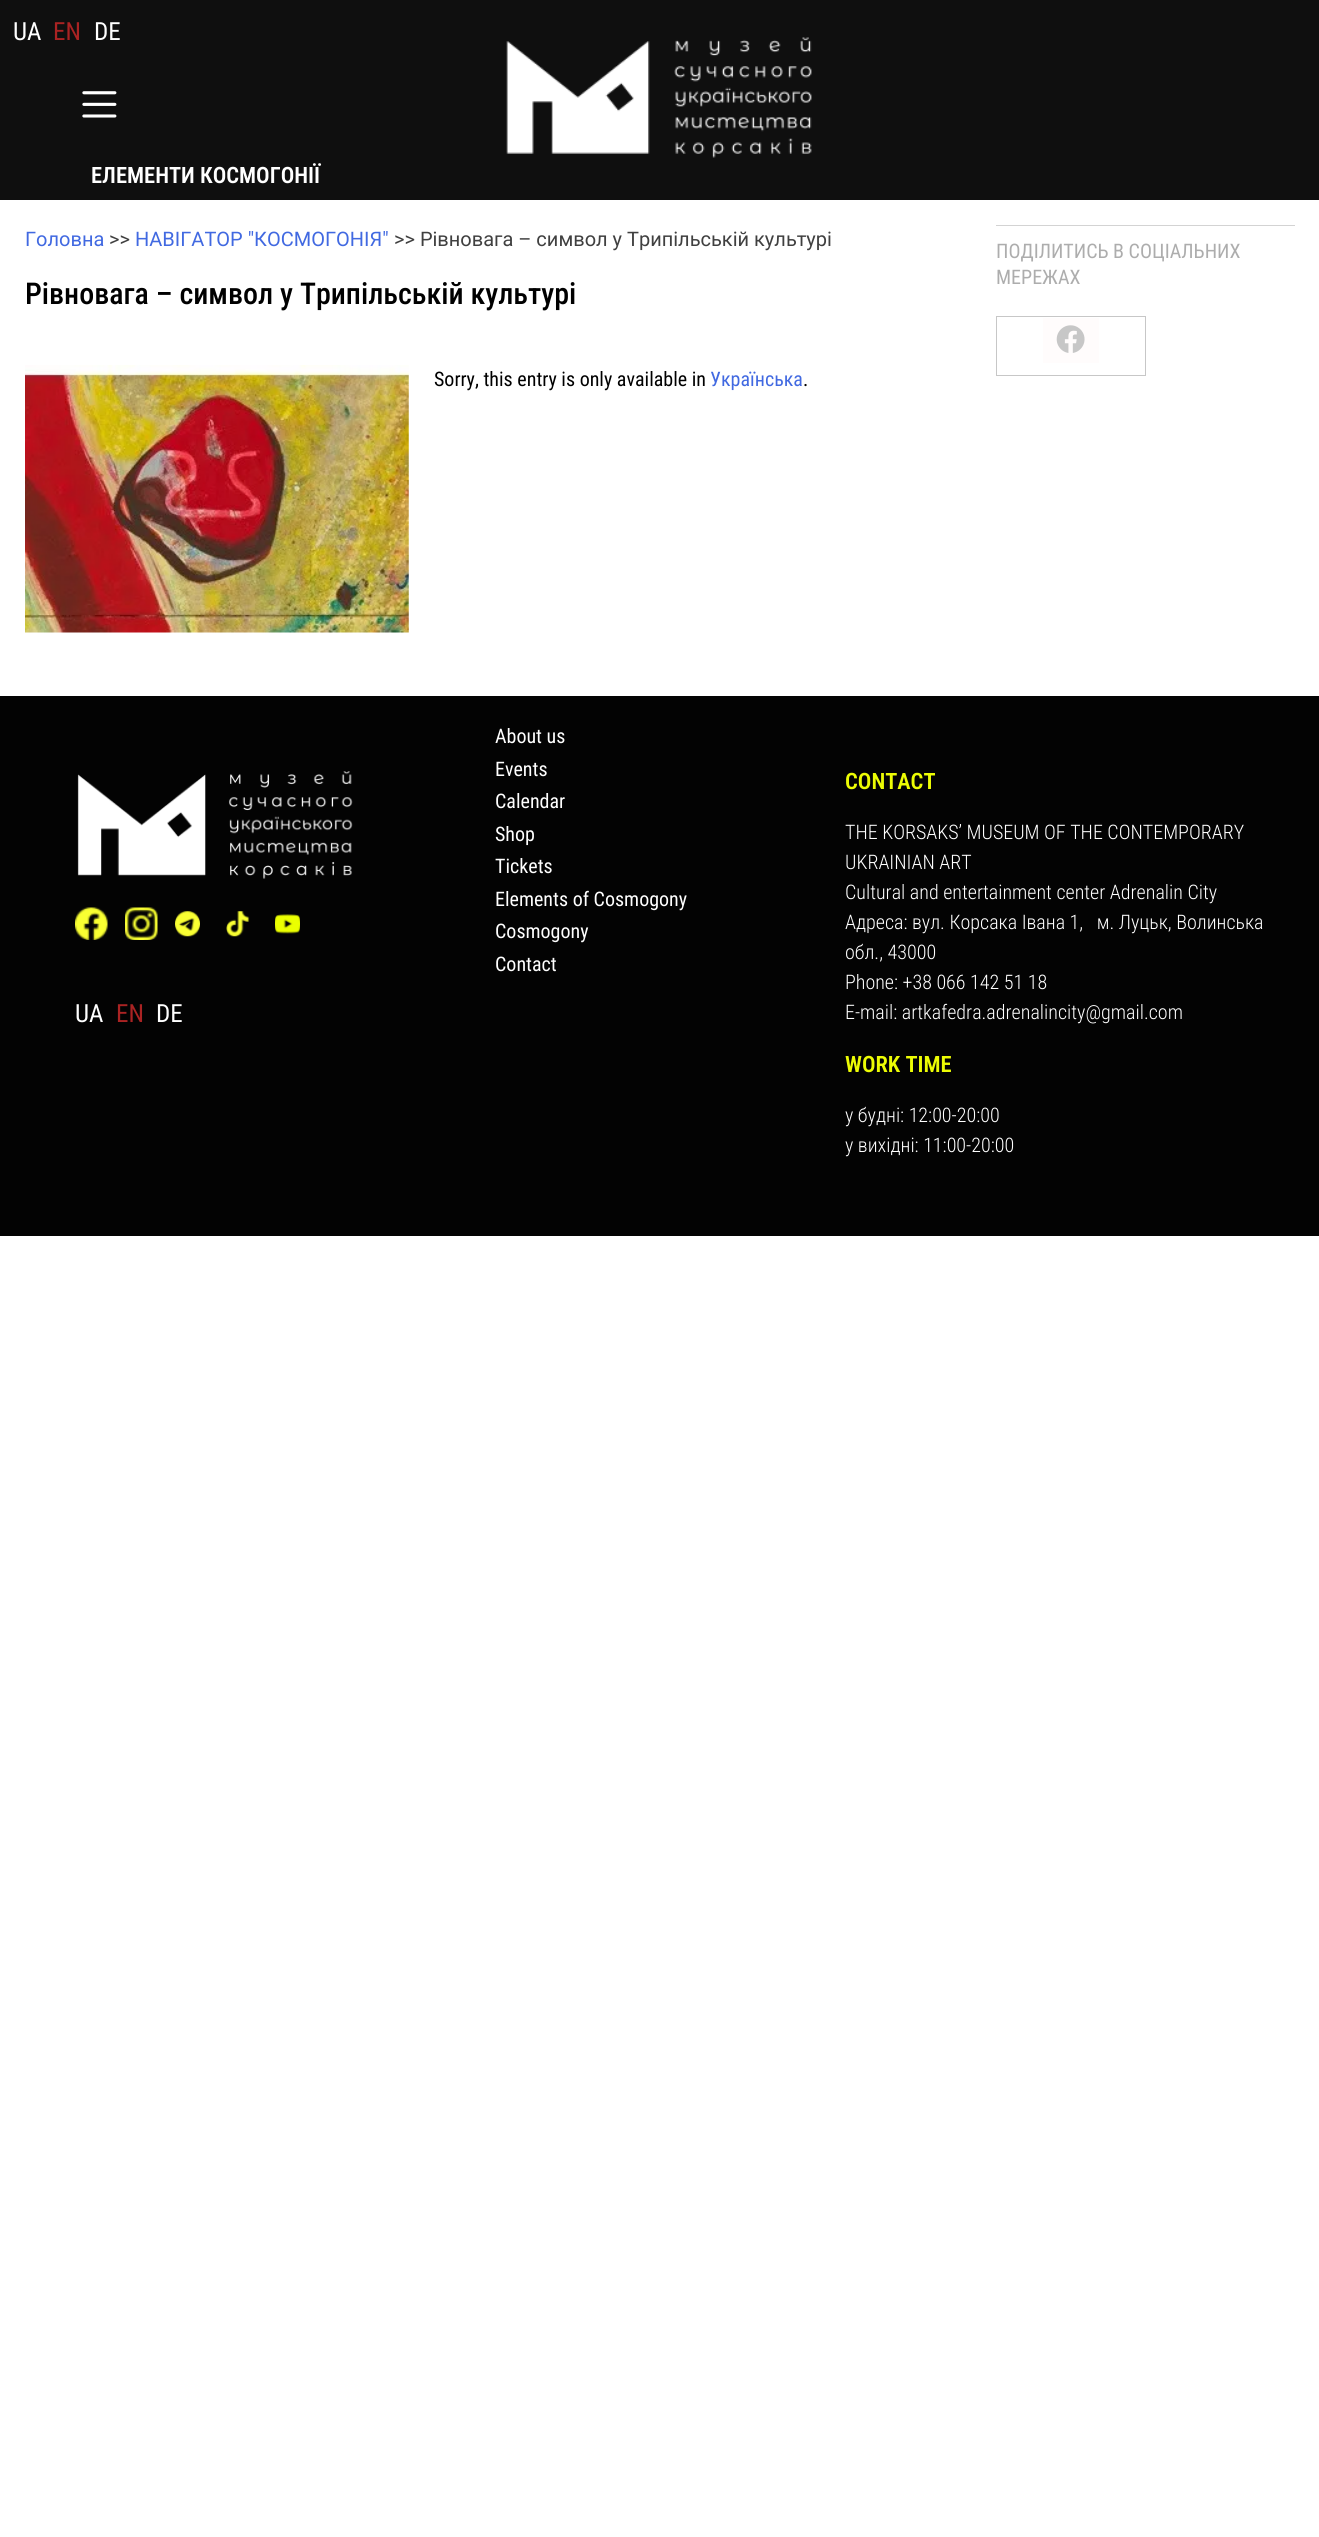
#include <cairo.h>
#include <math.h>
#include <stddef.h>

static cairo_t *c;
static void C(unsigned color){cairo_set_source_rgb(c, (color >> 16) / 255.0, (color >> 8 & 255) / 255.0, (color & 255) / 255.0);}
static void F(const char *family, double size, int italic, int bold){cairo_select_font_face(c, family, italic ? CAIRO_FONT_SLANT_ITALIC : CAIRO_FONT_SLANT_NORMAL,bold ? CAIRO_FONT_WEIGHT_BOLD : CAIRO_FONT_WEIGHT_NORMAL);cairo_set_font_size(c, size);}
static void T(double x, double y, const char *s){cairo_move_to(c, x, y);cairo_show_text(c, s);}
static void R(double x, double y, double w, double h){cairo_rectangle(c, x, y, w, h);cairo_fill(c);}
static void I(const char *path, double x, double y, double w, double h){cairo_surface_t *image = cairo_image_surface_create_from_png(path);cairo_save(c);cairo_set_source_surface(c, image, x, y);cairo_rectangle(c, x, y, w, h);cairo_fill(c);cairo_restore(c);cairo_surface_destroy(image);}
int main(void) {
cairo_surface_t *surface = cairo_image_surface_create(CAIRO_FORMAT_RGB24, 1319, 2537);
c = cairo_create(surface);
cairo_font_options_t *options = cairo_font_options_create();
cairo_font_options_set_hint_metrics(options, CAIRO_HINT_METRICS_OFF);
cairo_font_options_set_hint_style(options, CAIRO_HINT_STYLE_NONE);
cairo_set_font_options(c, options);
cairo_set_miter_limit(c, 4);
C(0xffffff);
cairo_paint(c);
C(0x0f0f0f);
R(0,0,1319,200);
F("Roboto Condensed",25,0,0);
C(0xffffff);
T(13,40,"UA");
C(0xaa2323);
T(53,40,"EN");
C(0xffffff);
T(94,40,"DE");
I("1.png",82,91,35,27);
F("Roboto Condensed SemiBold",22.5,0,0);
T(91,183,"ЕЛЕМЕНТИ КОСМОГОНІЇ");
I("2.png",506,37,306,121);
F("Roboto",20,0,0);
C(0x4169e1);
T(25,246,"Головна");
C(0x404040);
T(109,246,">>");
C(0x4169e1);
T(135,246,"НАВІГАТОР \"КОСМОГОНІЯ\"");
C(0x404040);
T(394,246,">> Рівновага – символ у Трипільській культурі");
F("Roboto Condensed Medium",30,0,0);
C(0x000000);
T(25,304,"Рівновага – символ у Трипільській культурі");
I("3.png",25,365,384,268);
F("Roboto Condensed",20,0,0);
T(434,386,"Sorry, this entry is only available in");
C(0x4169e1);
T(710,386,"Українська");
C(0x000000);
T(803,386,".");
C(0xd3d3d3);
R(996,225,299,1);
C(0xadadad);
T(996,258,"ПОДІЛИТИСЬ В СОЦІАЛЬНИХ");
T(996,284,"МЕРЕЖАХ");
cairo_rectangle(c,996.5,316.5,149,59);
C(0xc7c7c7);
cairo_set_line_width(c,1);
cairo_stroke(c);
C(0xfffcfc);
R(1043,318,56,45);
I("4.png",1056,325,29,28);
C(0x030303);
R(0,696,1319,540);
I("5.png",77,771,276,108);
I("6.png",75,907,33,33);
I("7.png",125,907,33,33);
I("8.png",175,911,25,26);
I("9.png",226,911,24,26);
I("10.png",275,914,25,20);
F("Roboto Condensed",25,0,0);
C(0xffffff);
T(75,1022,"UA");
C(0xaa2323);
T(116,1022,"EN");
C(0xffffff);
T(156,1022,"DE");
F("Roboto Condensed",20,0,0);
T(495,743,"About us");
T(495,776,"Events");
T(495,808,"Calendar");
T(495,841,"Shop");
T(495,873,"Tickets");
T(495,906,"Elements of Cosmogony");
T(495,938,"Cosmogony");
T(495,971,"Contact");
F("Roboto Condensed SemiBold",22.5,0,0);
C(0xecfc04);
T(845,789,"CONTACT");
F("Roboto Condensed Light",20,0,0);
C(0xffffff);
T(845,839,"THE KORSAKS’ MUSEUM OF THE CONTEMPORARY");
T(845,869,"UKRAINIAN ART");
T(845,899,"Cultural and entertainment center Adrenalin City");
T(845,929,"Адреса: вул. Корсака Івана 1,   м. Луцьк, Волинська");
T(845,959,"обл., 43000");
T(845,989,"Phone: +38 066 142 51 18");
T(845,1019,"E-mail: artkafedra.adrenalincity@gmail.com");
F("Roboto Condensed SemiBold",22.5,0,0);
C(0xecfc04);
T(845,1072,"WORK TIME");
F("Roboto Condensed Light",20,0,0);
C(0xffffff);
T(845,1122,"у будні: 12:00-20:00");
T(845,1152,"у вихідні: 11:00-20:00");
cairo_surface_write_to_png(surface, "o.png");
cairo_font_options_destroy(options);
cairo_destroy(c);
cairo_surface_destroy(surface);
return 0;
}
